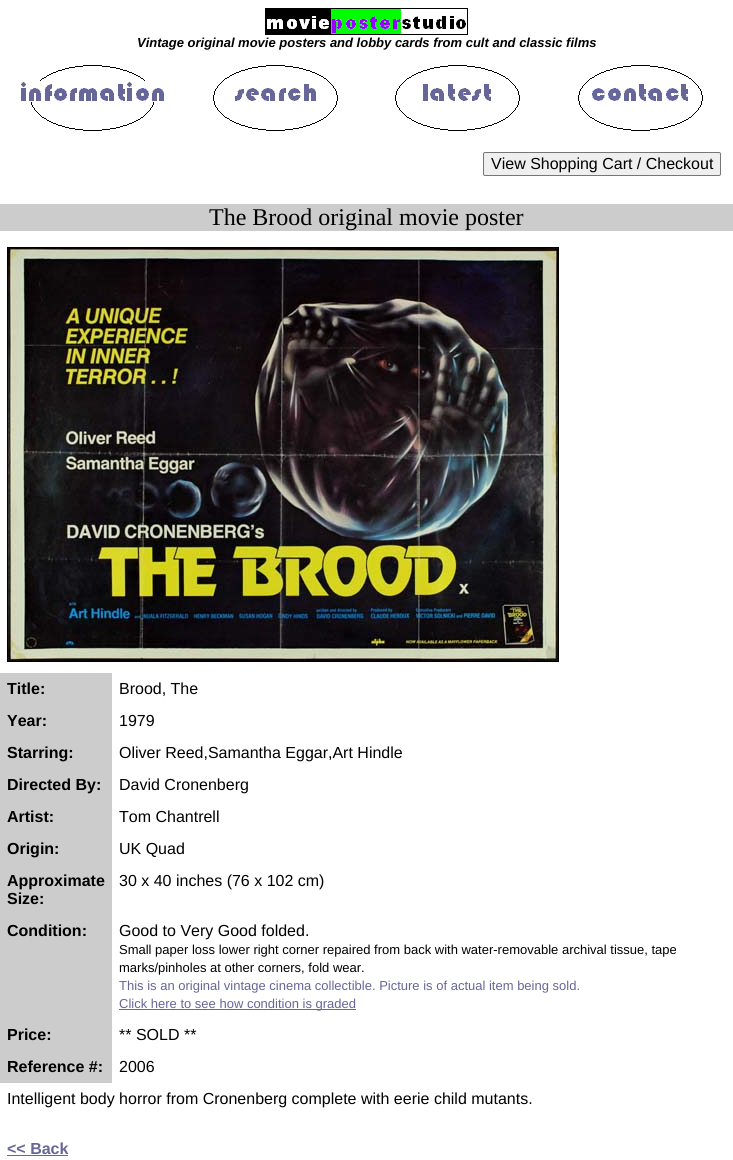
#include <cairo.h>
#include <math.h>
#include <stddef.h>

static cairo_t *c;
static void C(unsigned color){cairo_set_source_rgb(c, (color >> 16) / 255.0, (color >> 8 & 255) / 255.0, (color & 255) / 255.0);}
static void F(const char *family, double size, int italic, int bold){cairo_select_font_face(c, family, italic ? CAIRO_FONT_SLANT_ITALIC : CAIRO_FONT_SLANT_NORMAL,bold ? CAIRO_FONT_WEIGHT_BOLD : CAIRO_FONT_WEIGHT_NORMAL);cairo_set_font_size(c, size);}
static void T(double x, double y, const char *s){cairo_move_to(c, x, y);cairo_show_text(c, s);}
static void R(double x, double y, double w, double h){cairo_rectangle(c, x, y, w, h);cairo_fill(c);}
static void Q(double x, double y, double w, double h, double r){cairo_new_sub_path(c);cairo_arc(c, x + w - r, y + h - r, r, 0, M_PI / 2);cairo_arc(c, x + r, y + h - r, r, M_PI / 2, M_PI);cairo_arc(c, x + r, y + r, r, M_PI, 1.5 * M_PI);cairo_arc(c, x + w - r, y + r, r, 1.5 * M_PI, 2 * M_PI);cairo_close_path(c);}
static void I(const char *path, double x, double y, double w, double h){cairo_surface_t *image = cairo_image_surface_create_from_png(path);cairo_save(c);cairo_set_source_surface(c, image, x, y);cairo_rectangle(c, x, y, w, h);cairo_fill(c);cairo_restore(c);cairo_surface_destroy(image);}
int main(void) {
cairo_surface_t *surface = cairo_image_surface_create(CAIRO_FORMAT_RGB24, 733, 1160);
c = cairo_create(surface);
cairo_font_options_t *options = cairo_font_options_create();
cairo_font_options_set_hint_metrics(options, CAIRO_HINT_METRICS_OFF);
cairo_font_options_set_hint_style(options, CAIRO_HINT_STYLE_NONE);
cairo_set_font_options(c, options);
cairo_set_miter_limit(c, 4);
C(0xffffff);
cairo_paint(c);
cairo_rectangle(c,265.5,8.5,202,26);
C(0x000000);
cairo_set_line_width(c,1);
cairo_stroke(c);
I("1.png",266,9,200,25);
F("Liberation Sans",13,1,1);
T(137,47,"Vintage original movie posters and lobby cards from cult and classic films");
I("2.png",21,65,143,66);
I("3.png",213,65,125,66);
I("4.png",395,65,125,66);
I("5.png",578,65,125,66);
C(0xefefef);
Q(483.5,152.5,237,23,1.5);
cairo_fill_preserve(c);
C(0x767676);
cairo_stroke(c);
F("Liberation Sans",16,0,0);
C(0x000000);
T(491,169,"View Shopping Cart / Checkout");
C(0xcccccc);
R(0,204,733,27);
F("Liberation Serif",24,0,0);
C(0x000000);
T(209,225,"The Brood original movie poster");
cairo_rectangle(c,7.5,247.5,551,414);
cairo_stroke(c);
I("6.png",8,248,550,413);
C(0xcccccc);
R(0,673,112,410);
F("Liberation Sans",16,0,1);
C(0x000000);
T(7,694,"Title:");
F("Liberation Sans",16,0,0);
T(119,694,"Brood, The");
F("Liberation Sans",16,0,1);
T(7,726,"Year:");
F("Liberation Sans",16,0,0);
T(119,726,"1979");
F("Liberation Sans",16,0,1);
T(7,758,"Starring:");
F("Liberation Sans",16,0,0);
T(119,758,"Oliver Reed,Samantha Eggar,Art Hindle");
F("Liberation Sans",16,0,1);
T(7,790,"Directed By:");
F("Liberation Sans",16,0,0);
T(119,790,"David Cronenberg");
F("Liberation Sans",16,0,1);
T(7,822,"Artist:");
F("Liberation Sans",16,0,0);
T(119,822,"Tom Chantrell");
F("Liberation Sans",16,0,1);
T(7,854,"Origin:");
F("Liberation Sans",16,0,0);
T(119,854,"UK Quad");
F("Liberation Sans",16,0,1);
T(7,886,"Approximate");
T(7,904,"Size:");
F("Liberation Sans",16,0,0);
T(119,886,"30 x 40 inches (76 x 102 cm)");
F("Liberation Sans",16,0,1);
T(7,936,"Condition:");
F("Liberation Sans",16,0,0);
T(119,936,"Good to Very Good folded.");
F("Liberation Sans",13,0,0);
T(119,954,"Small paper loss lower right corner repaired from back with water-removable archival tissue, tape");
T(119,972,"marks/pinholes at other corners, fold wear.");
C(0x666699);
T(119,990,"This is an original vintage cinema collectible. Picture is of actual item being sold.");
R(119,1009,237,1);
T(119,1008,"Click here to see how condition is graded");
F("Liberation Sans",16,0,1);
C(0x000000);
T(7,1040,"Price:");
F("Liberation Sans",16,0,0);
T(119,1040,"** SOLD **");
F("Liberation Sans",16,0,1);
T(7,1072,"Reference #:");
F("Liberation Sans",16,0,0);
T(119,1072,"2006");
T(7,1104,"Intelligent body horror from Cronenberg complete with eerie child mutants.");
F("Liberation Sans",16,0,1);
C(0x666699);
T(7,1154,"<< Back");
R(7,1155,61,1);
cairo_surface_write_to_png(surface, "o.png");
cairo_font_options_destroy(options);
cairo_destroy(c);
cairo_surface_destroy(surface);
return 0;
}
